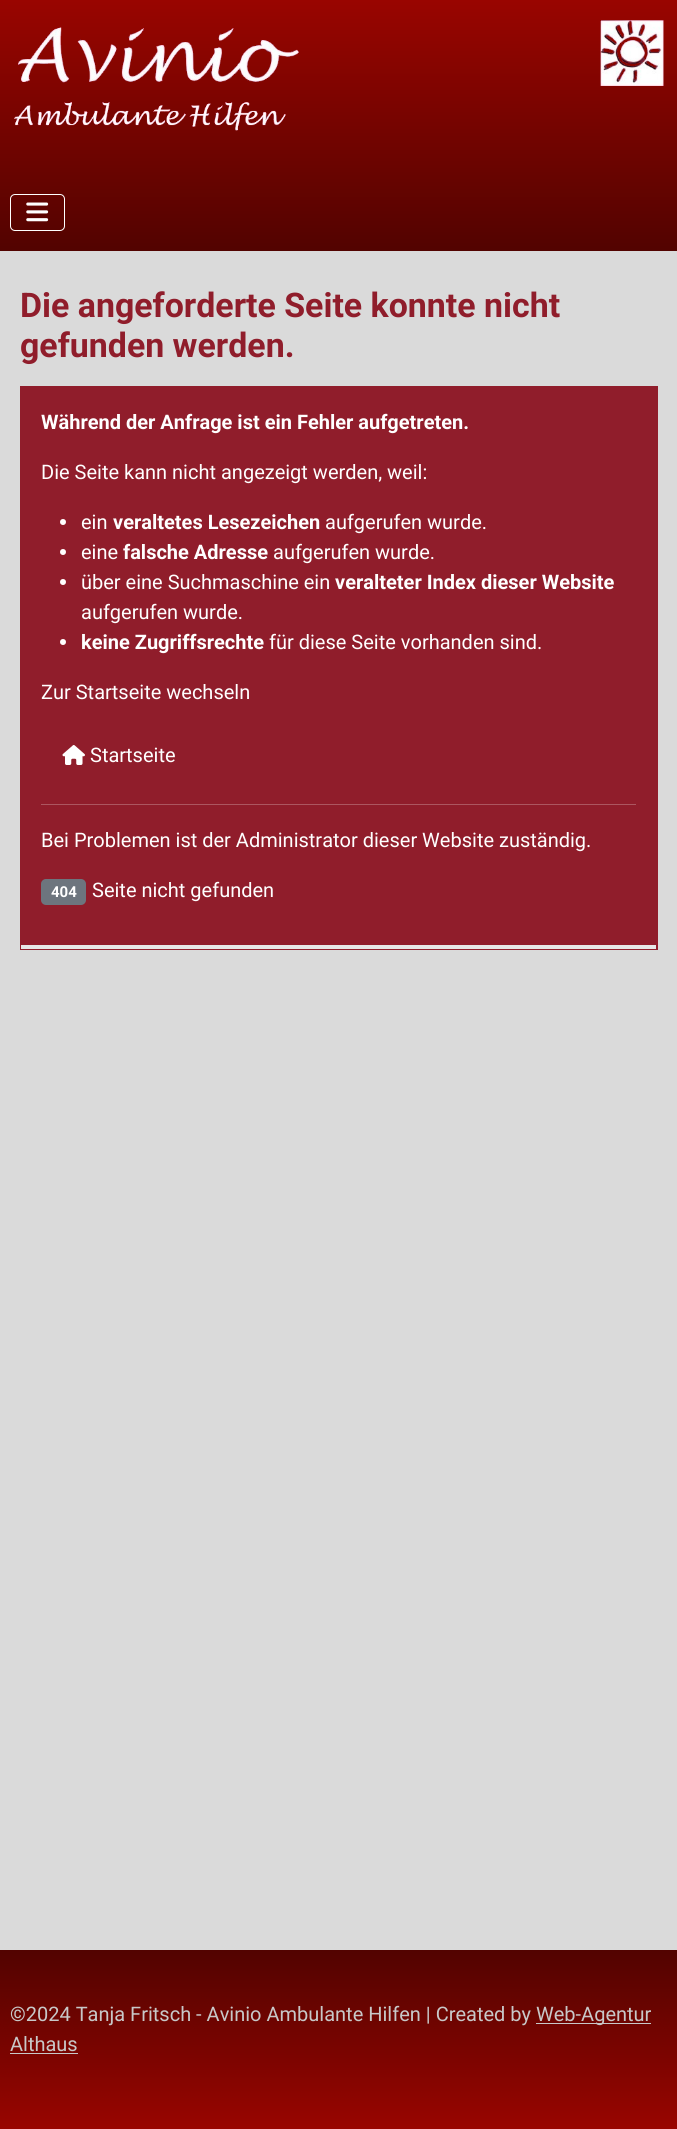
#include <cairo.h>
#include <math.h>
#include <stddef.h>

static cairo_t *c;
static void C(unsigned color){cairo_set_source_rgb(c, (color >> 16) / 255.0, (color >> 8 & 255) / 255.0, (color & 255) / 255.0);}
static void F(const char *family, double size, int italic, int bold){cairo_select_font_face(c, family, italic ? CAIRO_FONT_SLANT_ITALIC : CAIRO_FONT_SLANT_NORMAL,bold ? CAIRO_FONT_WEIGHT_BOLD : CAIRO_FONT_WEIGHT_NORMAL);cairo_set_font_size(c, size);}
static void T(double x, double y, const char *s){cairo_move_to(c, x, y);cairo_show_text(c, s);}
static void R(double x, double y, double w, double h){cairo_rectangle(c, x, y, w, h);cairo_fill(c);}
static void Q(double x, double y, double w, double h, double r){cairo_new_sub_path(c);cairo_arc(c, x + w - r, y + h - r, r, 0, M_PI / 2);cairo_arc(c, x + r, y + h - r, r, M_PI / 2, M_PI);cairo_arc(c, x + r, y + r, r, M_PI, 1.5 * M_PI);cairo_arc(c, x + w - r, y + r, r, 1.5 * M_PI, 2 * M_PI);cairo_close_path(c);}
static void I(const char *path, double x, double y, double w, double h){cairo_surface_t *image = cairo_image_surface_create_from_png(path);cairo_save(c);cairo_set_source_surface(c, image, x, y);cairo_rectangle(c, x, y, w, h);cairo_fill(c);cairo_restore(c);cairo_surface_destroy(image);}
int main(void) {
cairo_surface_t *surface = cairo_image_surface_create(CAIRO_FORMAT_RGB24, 677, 2129);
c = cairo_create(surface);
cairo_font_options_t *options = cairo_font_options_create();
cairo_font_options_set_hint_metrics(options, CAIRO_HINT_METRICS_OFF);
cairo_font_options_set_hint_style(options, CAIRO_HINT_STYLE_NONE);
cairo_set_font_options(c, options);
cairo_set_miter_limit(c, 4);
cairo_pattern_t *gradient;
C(0xdadada);
cairo_paint(c);
gradient = cairo_pattern_create_linear(339,0,339,251);
cairo_pattern_add_color_stop_rgba(gradient,0,0.6,0.02,0,1);
cairo_pattern_add_color_stop_rgba(gradient,1,0.322,0.012,0,1);
cairo_set_source(c,gradient);
cairo_pattern_destroy(gradient);
R(0,0,677,251);
I("1.png",14,20,650,111);
Q(10.5,194.5,54,36,4.5);
C(0xffffff);
cairo_set_line_width(c,1);
cairo_stroke(c);
I("2.png",26,202,23,20);
F("Roboto",33.9,0,1);
C(0x901d2b);
T(20,317,"Die angeforderte Seite konnte nicht");
T(20,357,"gefunden werden.");
R(20,386,638,564);
C(0xe7e7e7);
R(21,945,635,4);
F("Roboto",20,0,1);
C(0xffffff);
T(41,429,"Während der Anfrage ist ein Fehler aufgetreten.");
F("Roboto",20,0,0);
T(41,479,"Die Seite kann nicht angezeigt werden, weil:");
cairo_new_path(c);
cairo_arc(c,63,522,3,0,2 * M_PI);
cairo_fill(c);
T(81,529,"ein");
F("Roboto",20,0,1);
T(113,529,"veraltetes Lesezeichen");
F("Roboto",20,0,0);
T(325,529,"aufgerufen wurde.");
cairo_new_path(c);
cairo_arc(c,63,552,3,0,2 * M_PI);
cairo_fill(c);
T(81,559,"eine");
F("Roboto",20,0,1);
T(123,559,"falsche Adresse");
F("Roboto",20,0,0);
T(273,559,"aufgerufen wurde.");
cairo_new_path(c);
cairo_arc(c,63,582,3,0,2 * M_PI);
cairo_fill(c);
T(81,589,"über eine Suchmaschine ein");
F("Roboto",20,0,1);
T(335,589,"veralteter Index dieser Website");
F("Roboto",20,0,0);
T(81,619,"aufgerufen wurde.");
cairo_new_path(c);
cairo_arc(c,63,642,3,0,2 * M_PI);
cairo_fill(c);
F("Roboto",20,0,1);
T(81,649,"keine Zugriffsrechte");
F("Roboto",20,0,0);
T(269,649,"für diese Seite vorhanden sind.");
T(41,699,"Zur Startseite wechseln");
I("3.png",62,745,23,20);
T(90,762,"Startseite");
C(0xac5660);
R(41,804,595,1);
C(0xffffff);
T(41,847,"Bei Problemen ist der Administrator dieser Website zuständig.");
C(0x6d757e);
Q(41,879,45,26,5);
cairo_fill(c);
F("Roboto",15,0,1);
C(0xffffff);
T(51,897,"404");
F("Roboto",20,0,0);
T(92,897,"Seite nicht gefunden");
gradient = cairo_pattern_create_linear(339,1950,339,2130);
cairo_pattern_add_color_stop_rgba(gradient,0,0.322,0.012,0,1);
cairo_pattern_add_color_stop_rgba(gradient,1,0.6,0.02,0,1);
cairo_set_source(c,gradient);
cairo_pattern_destroy(gradient);
R(0,1950,677,179);
C(0xc8c8c8);
T(10,2021,"©2024 Tanja Fritsch - Avinio Ambulante Hilfen | Created by");
R(536,2023,115,1);
T(536,2021,"Web-Agentur");
T(10,2051,"Althaus");
R(10,2053,68,1);
cairo_surface_write_to_png(surface, "o.png");
cairo_font_options_destroy(options);
cairo_destroy(c);
cairo_surface_destroy(surface);
return 0;
}
